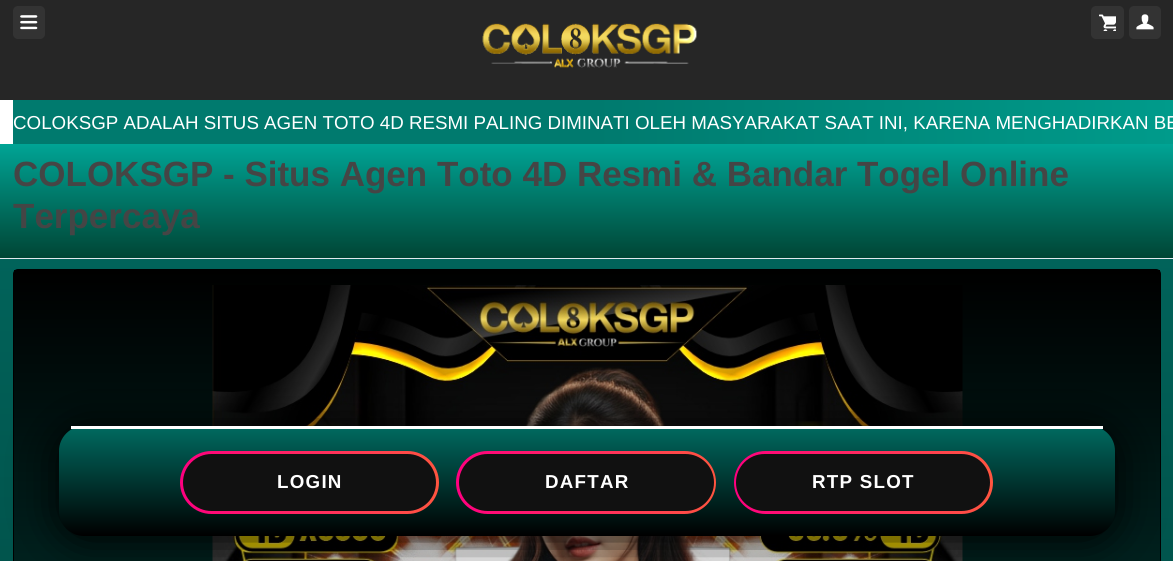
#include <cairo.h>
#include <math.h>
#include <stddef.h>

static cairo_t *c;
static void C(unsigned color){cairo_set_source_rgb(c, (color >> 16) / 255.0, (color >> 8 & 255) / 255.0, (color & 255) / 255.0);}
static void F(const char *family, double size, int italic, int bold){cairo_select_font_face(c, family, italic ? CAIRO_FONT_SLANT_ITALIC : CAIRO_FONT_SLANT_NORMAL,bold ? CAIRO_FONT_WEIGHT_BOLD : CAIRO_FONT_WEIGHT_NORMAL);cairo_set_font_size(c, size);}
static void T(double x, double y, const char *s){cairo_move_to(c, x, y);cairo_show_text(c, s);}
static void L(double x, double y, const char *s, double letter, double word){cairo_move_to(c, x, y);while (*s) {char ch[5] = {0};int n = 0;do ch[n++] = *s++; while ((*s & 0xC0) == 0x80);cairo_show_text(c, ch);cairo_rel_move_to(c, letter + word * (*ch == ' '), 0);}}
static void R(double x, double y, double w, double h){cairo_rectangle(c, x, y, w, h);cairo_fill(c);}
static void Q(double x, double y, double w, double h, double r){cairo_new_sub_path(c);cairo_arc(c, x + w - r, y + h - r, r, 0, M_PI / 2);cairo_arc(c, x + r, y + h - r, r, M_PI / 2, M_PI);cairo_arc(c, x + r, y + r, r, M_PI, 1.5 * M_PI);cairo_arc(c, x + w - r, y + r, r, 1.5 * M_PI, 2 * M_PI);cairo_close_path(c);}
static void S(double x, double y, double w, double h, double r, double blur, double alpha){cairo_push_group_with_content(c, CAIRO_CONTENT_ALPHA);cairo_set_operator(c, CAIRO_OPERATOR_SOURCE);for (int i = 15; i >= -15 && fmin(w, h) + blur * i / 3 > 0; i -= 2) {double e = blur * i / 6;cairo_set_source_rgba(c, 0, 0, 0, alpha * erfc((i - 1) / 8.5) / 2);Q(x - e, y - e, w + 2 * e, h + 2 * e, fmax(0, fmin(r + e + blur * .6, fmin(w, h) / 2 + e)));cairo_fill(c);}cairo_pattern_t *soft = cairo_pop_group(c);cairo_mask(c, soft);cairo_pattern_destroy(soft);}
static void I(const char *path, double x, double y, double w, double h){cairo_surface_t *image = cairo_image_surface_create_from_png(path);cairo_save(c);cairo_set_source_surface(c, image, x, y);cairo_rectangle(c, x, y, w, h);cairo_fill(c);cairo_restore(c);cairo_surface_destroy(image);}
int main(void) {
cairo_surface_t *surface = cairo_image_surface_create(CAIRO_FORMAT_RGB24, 1173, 561);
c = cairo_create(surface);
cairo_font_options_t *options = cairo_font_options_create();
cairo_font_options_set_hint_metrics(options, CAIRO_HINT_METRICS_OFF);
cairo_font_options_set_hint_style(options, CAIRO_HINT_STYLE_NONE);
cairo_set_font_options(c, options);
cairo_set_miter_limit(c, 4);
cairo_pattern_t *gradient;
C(0xffffff);
cairo_paint(c);
C(0x262626);
R(0,0,1173,100);
C(0x333333);
Q(13,6,32,33,5);
cairo_fill(c);
I("1.png",20,15,18,15);
I("2.png",482,23,215,45);
Q(1091,6,33,33,5);
cairo_fill(c);
I("3.png",1099,14,17,17);
Q(1129,6,32,33,5);
cairo_fill(c);
I("4.png",1136,14,18,16);
gradient = cairo_pattern_create_linear(13,122,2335,122);
cairo_pattern_add_color_stop_rgba(gradient,0,0,0.478,0.431,1);
cairo_pattern_add_color_stop_rgba(gradient,.25,0,0.478,0.431,1);
cairo_pattern_add_color_stop_rgba(gradient,.5,0,0.608,0.545,1);
cairo_pattern_add_color_stop_rgba(gradient,.75,0,0.478,0.431,1);
cairo_pattern_add_color_stop_rgba(gradient,1,0,0.478,0.431,1);
cairo_set_source(c,gradient);
cairo_pattern_destroy(gradient);
R(13,100,1160,44);
F("Liberation Sans",18.75,0,0);
C(0xffffff);
T(13,129,"COLOKSGP ADALAH SITUS AGEN TOTO 4D RESMI PALING DIMINATI OLEH MASYARAKAT SAAT INI, KARENA MENGHADIRKAN BE");
gradient = cairo_pattern_create_linear(587,144,587,258);
cairo_pattern_add_color_stop_rgba(gradient,0,0,0.643,0.584,1);
cairo_pattern_add_color_stop_rgba(gradient,1,0,0.271,0.208,1);
cairo_set_source(c,gradient);
cairo_pattern_destroy(gradient);
R(0,144,1173,114);
C(0xe1e8ed);
R(0,258,1173,1);
F("Liberation Sans",35,0,1);
C(0x454545);
T(13,186,"COLOKSGP - Situs Agen Toto 4D Resmi & Bandar Togel Online");
T(13,228,"Terpercaya");
gradient = cairo_pattern_create_linear(587,259,587,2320);
cairo_pattern_add_color_stop_rgba(gradient,0,0.004,0.388,0.353,1);
cairo_pattern_add_color_stop_rgba(gradient,1,0,0,0,1);
cairo_set_source(c,gradient);
cairo_pattern_destroy(gradient);
R(0,259,1173,302);
Q(13.5,269.5,1147,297,4.5);
C(0x000000);
cairo_set_line_width(c,1);
cairo_stroke(c);
gradient = cairo_pattern_create_linear(587,270,587,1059);
cairo_pattern_add_color_stop_rgba(gradient,0,0,0,0,1);
cairo_pattern_add_color_stop_rgba(gradient,1,0,0.345,0.314,1);
cairo_set_source(c,gradient);
cairo_pattern_destroy(gradient);
R(14,270,1146,291);
I("5.png",212,285,751,276);
C(0x000000);
S(59,429,1056,110,25,22,1);
cairo_save(c);
Q(59,426,1056,110,25);
cairo_clip(c);
gradient = cairo_pattern_create_linear(587,429,587,536);
cairo_pattern_add_color_stop_rgba(gradient,0,0,0.408,0.369,1);
cairo_pattern_add_color_stop_rgba(gradient,1,0,0,0,1);
cairo_set_source(c,gradient);
cairo_pattern_destroy(gradient);
cairo_new_path(c);
cairo_move_to(c,59,429);
cairo_line_to(c,1115,429);
cairo_line_to(c,1115,511);
cairo_curve_to(c,1115,525,1104,536,1090,536);
cairo_line_to(c,84,536);
cairo_curve_to(c,70,536,59,525,59,511);
cairo_close_path(c);
cairo_fill(c);
cairo_restore(c);
C(0xffffff);
R(71,426,1032,3);
gradient = cairo_pattern_create_linear(181,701,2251,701);
cairo_pattern_add_color_stop_rgba(gradient,0,1,0,0.498,1);
cairo_pattern_add_color_stop_rgba(gradient,.25,1,0.667,0,1);
cairo_pattern_add_color_stop_rgba(gradient,.5,0,0.498,1,1);
cairo_pattern_add_color_stop_rgba(gradient,.75,0,1,0.8,1);
cairo_pattern_add_color_stop_rgba(gradient,1,1,0,0.498,1);
cairo_set_source(c,gradient);
cairo_pattern_destroy(gradient);
Q(180,451,259,63,31.5);
cairo_fill(c);
C(0x111111);
Q(183,454,253,57,28.5);
cairo_fill(c);
F("Liberation Sans",18.75,0,1);
C(0xffffff);
L(277,488,"LOGIN",1.25,0);
gradient = cairo_pattern_create_linear(457,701,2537,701);
cairo_pattern_add_color_stop_rgba(gradient,0,1,0,0.498,1);
cairo_pattern_add_color_stop_rgba(gradient,.25,1,0.667,0,1);
cairo_pattern_add_color_stop_rgba(gradient,.5,0,0.498,1,1);
cairo_pattern_add_color_stop_rgba(gradient,.75,0,1,0.8,1);
cairo_pattern_add_color_stop_rgba(gradient,1,1,0,0.498,1);
cairo_set_source(c,gradient);
cairo_pattern_destroy(gradient);
Q(456,451,260,63,31.5);
cairo_fill(c);
C(0x111111);
Q(459,454,255,57,28.5);
cairo_fill(c);
C(0xffffff);
L(545,488,"DAFTAR",1.25,0);
gradient = cairo_pattern_create_linear(734,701,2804,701);
cairo_pattern_add_color_stop_rgba(gradient,0,1,0,0.498,1);
cairo_pattern_add_color_stop_rgba(gradient,.25,1,0.667,0,1);
cairo_pattern_add_color_stop_rgba(gradient,.5,0,0.498,1,1);
cairo_pattern_add_color_stop_rgba(gradient,.75,0,1,0.8,1);
cairo_pattern_add_color_stop_rgba(gradient,1,1,0,0.498,1);
cairo_set_source(c,gradient);
cairo_pattern_destroy(gradient);
Q(734,451,259,63,31.5);
cairo_fill(c);
C(0x111111);
Q(736,454,254,57,28.5);
cairo_fill(c);
C(0xffffff);
L(812,488,"RTP SLOT",1.25,0);
cairo_surface_write_to_png(surface, "o.png");
cairo_font_options_destroy(options);
cairo_destroy(c);
cairo_surface_destroy(surface);
return 0;
}
